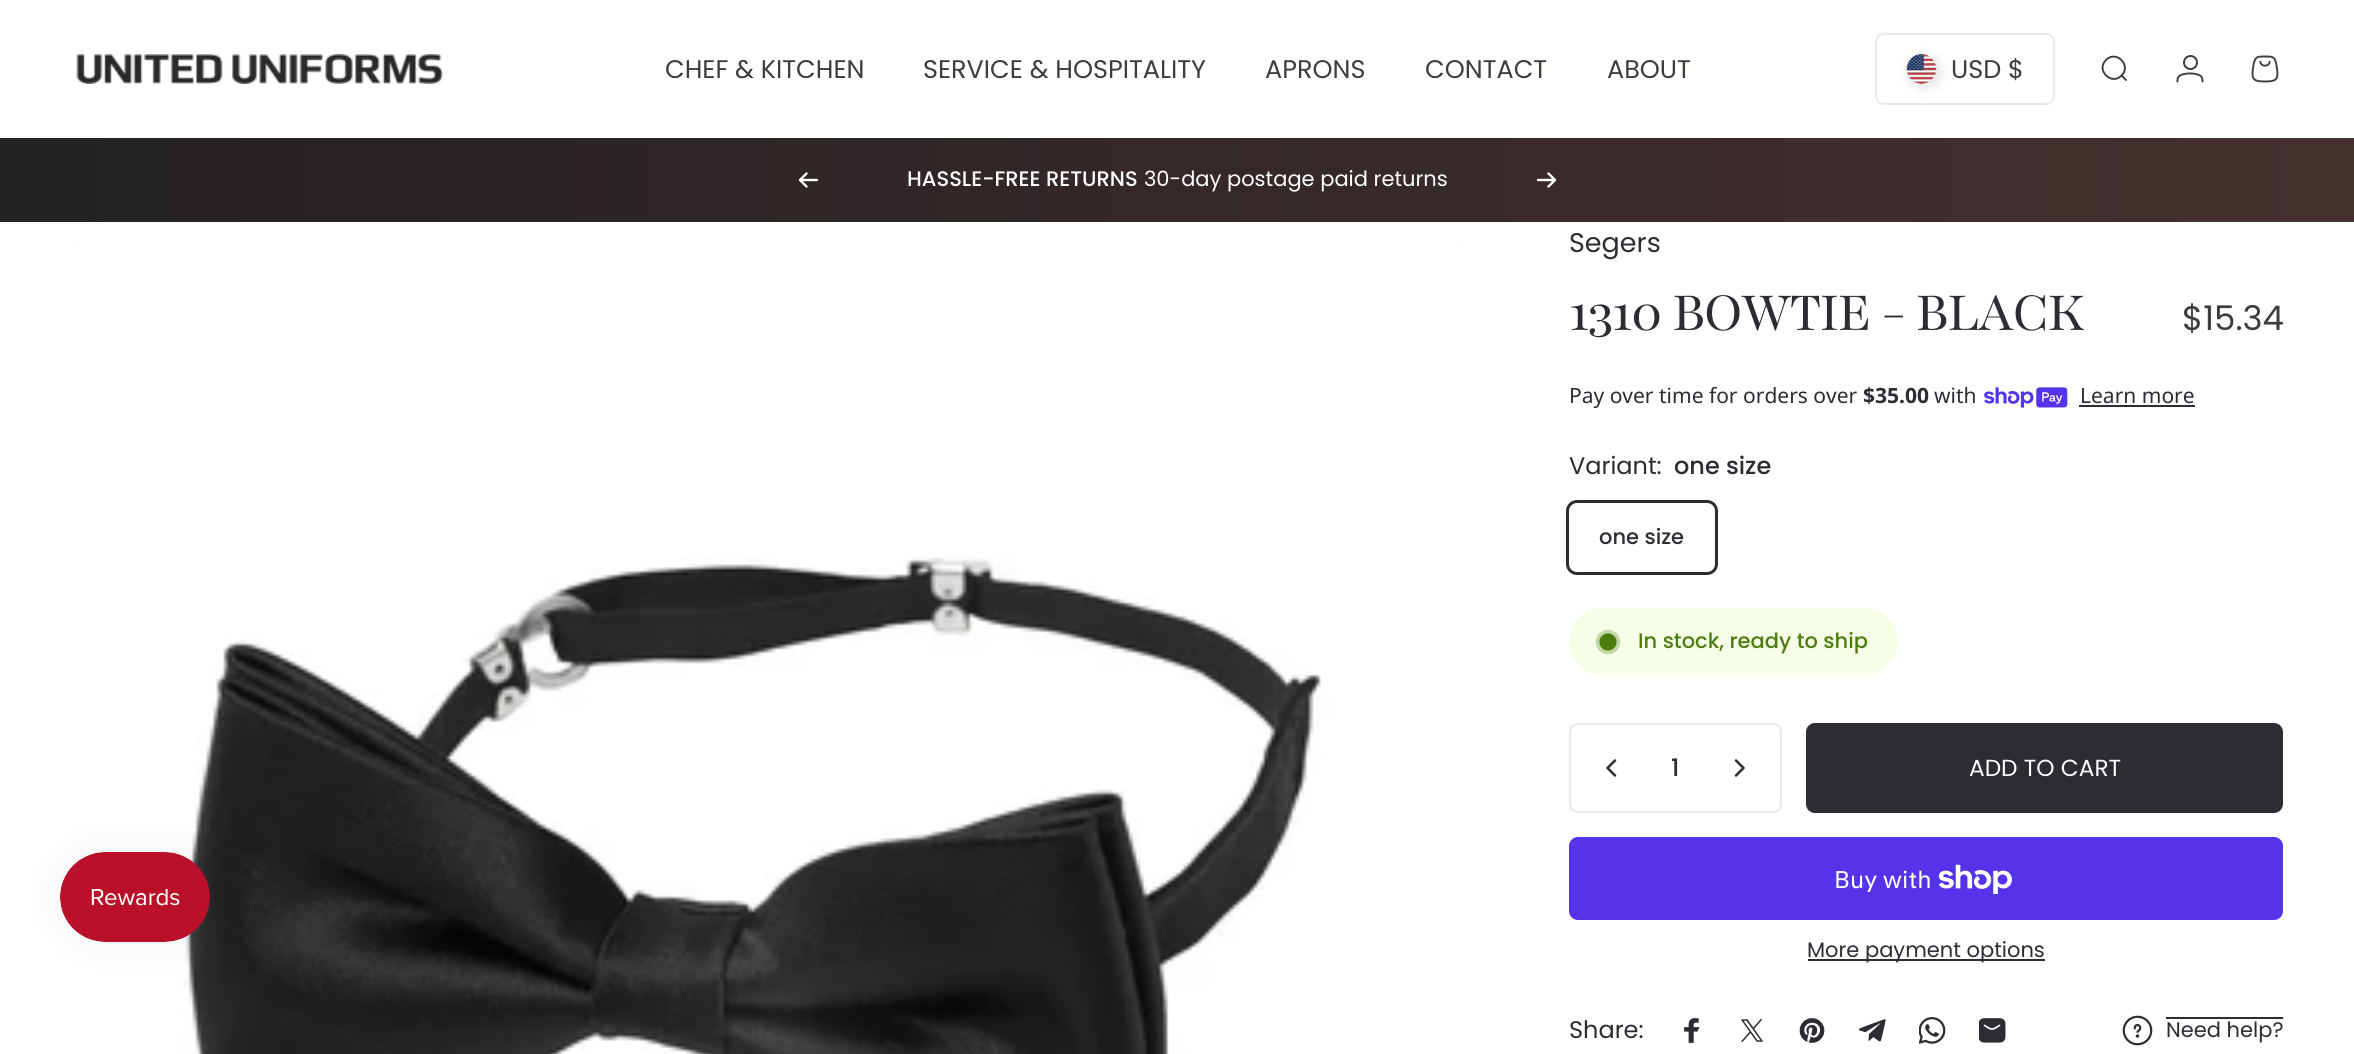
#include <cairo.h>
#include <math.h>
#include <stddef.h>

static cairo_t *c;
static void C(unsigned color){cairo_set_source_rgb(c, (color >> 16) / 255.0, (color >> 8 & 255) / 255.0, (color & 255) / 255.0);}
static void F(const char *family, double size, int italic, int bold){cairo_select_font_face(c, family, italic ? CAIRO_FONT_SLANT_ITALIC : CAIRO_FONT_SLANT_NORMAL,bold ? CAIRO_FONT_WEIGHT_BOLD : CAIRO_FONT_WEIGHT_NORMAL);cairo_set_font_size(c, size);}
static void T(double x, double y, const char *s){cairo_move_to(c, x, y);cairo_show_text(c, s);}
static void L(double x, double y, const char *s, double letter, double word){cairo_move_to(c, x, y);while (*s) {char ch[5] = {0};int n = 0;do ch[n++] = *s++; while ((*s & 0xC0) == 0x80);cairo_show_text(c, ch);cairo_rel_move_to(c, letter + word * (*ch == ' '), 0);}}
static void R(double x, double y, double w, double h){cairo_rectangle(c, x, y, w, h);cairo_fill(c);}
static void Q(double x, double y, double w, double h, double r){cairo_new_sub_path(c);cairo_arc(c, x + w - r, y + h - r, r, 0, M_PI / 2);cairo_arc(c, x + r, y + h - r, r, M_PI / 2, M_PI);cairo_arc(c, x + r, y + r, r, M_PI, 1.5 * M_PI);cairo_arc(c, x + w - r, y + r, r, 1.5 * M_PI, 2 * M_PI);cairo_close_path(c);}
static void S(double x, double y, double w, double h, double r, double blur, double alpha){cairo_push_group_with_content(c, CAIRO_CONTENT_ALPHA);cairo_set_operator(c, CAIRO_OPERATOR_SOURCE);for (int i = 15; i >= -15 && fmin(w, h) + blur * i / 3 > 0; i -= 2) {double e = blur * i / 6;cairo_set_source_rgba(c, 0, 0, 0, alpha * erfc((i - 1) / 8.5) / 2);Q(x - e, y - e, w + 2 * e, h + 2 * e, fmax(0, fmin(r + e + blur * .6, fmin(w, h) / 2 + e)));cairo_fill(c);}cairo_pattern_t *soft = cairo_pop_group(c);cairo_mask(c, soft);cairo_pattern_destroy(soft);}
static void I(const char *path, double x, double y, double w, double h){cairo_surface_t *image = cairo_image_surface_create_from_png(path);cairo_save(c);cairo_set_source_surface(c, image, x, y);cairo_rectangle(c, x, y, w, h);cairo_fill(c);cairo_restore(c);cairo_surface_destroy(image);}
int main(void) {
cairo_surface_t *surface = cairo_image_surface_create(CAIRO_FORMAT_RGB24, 2354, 1054);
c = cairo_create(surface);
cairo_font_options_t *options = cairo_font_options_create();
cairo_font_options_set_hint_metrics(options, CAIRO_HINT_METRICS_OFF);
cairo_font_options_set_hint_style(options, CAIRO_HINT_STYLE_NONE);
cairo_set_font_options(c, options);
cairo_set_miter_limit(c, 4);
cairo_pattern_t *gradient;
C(0xffffff);
cairo_paint(c);
I("1.png",76,54,367,30);
F("Poppins",25.5,0,0);
C(0x403c39);
T(665,78,"CHEF & KITCHEN");
T(923,78,"SERVICE & HOSPITALITY");
T(1265,78,"APRONS");
T(1425,78,"CONTACT");
T(1607,78,"ABOUT");
Q(1876,34,178,70,8);
C(0xeaeaeb);
cairo_stroke(c);
C(0x403c39);
S(1910,57,30,30,15,6,.15);
C(0xf4eded);
cairo_arc(c,1922,69,15,0,2 * M_PI);
cairo_fill(c);
I("2.png",1906,54,31,30);
C(0x403c39);
T(1951,78,"USD $");
cairo_new_path(c);
cairo_move_to(c,2126,80);
cairo_line_to(c,2121.5,75.5);
cairo_move_to(c,2121.5,75.5);
cairo_curve_to(c,2132,65.5,2116,49.5,2106,60);
cairo_curve_to(c,2095.5,70,2111.5,86,2121.5,75.5);
cairo_close_path(c);
cairo_set_line_width(c,1.9);
cairo_set_line_cap(c,CAIRO_LINE_CAP_ROUND);
cairo_stroke(c);
I("3.png",2176,55,28,28);
I("4.png",2251,55,28,28);
gradient = cairo_pattern_create_linear(0,180,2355,180);
cairo_pattern_add_color_stop_rgba(gradient,0,0.137,0.129,0.133,1);
cairo_pattern_add_color_stop_rgba(gradient,1,0.275,0.184,0.184,1);
cairo_set_source(c,gradient);
cairo_pattern_destroy(gradient);
R(0,138,2354,38);
gradient = cairo_pattern_create_linear(0,199,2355,199);
cairo_pattern_add_color_stop_rgba(gradient,0,0.137,0.129,0.133,1);
cairo_pattern_add_color_stop_rgba(gradient,1,0.275,0.184,0.184,1);
cairo_set_source(c,gradient);
cairo_pattern_destroy(gradient);
cairo_new_path(c);
cairo_move_to(c,38,138);
cairo_line_to(c,2317,138);
cairo_curve_to(c,2338,138,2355,155,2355,176);
cairo_line_to(c,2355,260);
cairo_line_to(c,0,260);
cairo_line_to(c,0,176);
cairo_curve_to(c,0,155,17,138,38,138);
cairo_close_path(c);
cairo_fill(c);
cairo_new_path(c);
cairo_move_to(c,806.5,173.5);
cairo_line_to(c,800,180);
cairo_move_to(c,800,180);
cairo_line_to(c,806.5,186.5);
cairo_move_to(c,800,180);
cairo_line_to(c,817,180);
C(0xffffff);
cairo_set_line_width(c,2.4);
cairo_set_line_join(c,CAIRO_LINE_JOIN_ROUND);
cairo_stroke(c);
F("Poppins Medium",21,0,0);
T(907,186,"HASSLE-FREE RETURNS");
F("Poppins",21,0,0);
T(1144,186,"30-day postage paid returns");
cairo_new_path(c);
cairo_move_to(c,1538,180);
cairo_line_to(c,1555,180);
cairo_move_to(c,1555,180);
cairo_line_to(c,1548.5,173.5);
cairo_move_to(c,1555,180);
cairo_line_to(c,1548.5,186.5);
cairo_stroke(c);
R(0,222,2354,38);
C(0xf4eded);
Q(72,222,1386,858,26);
cairo_fill(c);
I("6.png",72,222,1386,832);
C(0x000000);
S(60,852,150,90,45,19,.05);
I("5.png",60,852,150,90);
F("Poppins",27,0,0);
C(0x2e2b32);
T(1569,252,"Segers");
F("Playfair",60,0,0);
L(1569,330,"1310 BOWTIE - BLACK",-1.75,0);
F("Poppins",34,0,0);
C(0x403c39);
T(2182,330,"$15.34");
F("Noto Sans",21,0,0);
C(0x2e2b32);
T(1569,403,"Pay over time for orders over");
F("Noto Sans",21,0,1);
T(1863,403,"$35.00");
F("Noto Sans",21,0,0);
T(1934,403,"with");
I("7.png",1984,387,84,21);
T(2080,403,"Learn more");
R(2079,405,116,2);
F("Poppins",24,0,0);
T(1569,474,"Variant:");
F("Poppins Medium",24,0,0);
T(1674,474,"one size");
Q(1567.5,501.5,149,72,9.5);
cairo_set_line_width(c,3);
cairo_set_line_cap(c,CAIRO_LINE_CAP_BUTT);
cairo_set_line_join(c,CAIRO_LINE_JOIN_MITER);
cairo_stroke(c);
F("Poppins Medium",21,0,0);
T(1599,544,"one size");
C(0xf7fee7);
Q(1569,608,329,67,33.5);
cairo_fill(c);
C(0x4d7c0f);
cairo_arc(c,1608,642,7.5,0,2 * M_PI);
cairo_fill_preserve(c);
cairo_set_line_width(c,2.2);
cairo_stroke(c);
cairo_arc(c,1608,642,10,0,2 * M_PI);
cairo_set_source_rgba(c,0.302,0.486,0.059,0.3);
cairo_set_line_width(c,4.5);
cairo_stroke(c);
C(0x4d7c0f);
T(1638,648,"In stock, ready to ship");
Q(1570,724,211,88,8);
C(0xeaeaeb);
cairo_set_line_width(c,2);
cairo_stroke(c);
cairo_new_path(c);
cairo_move_to(c,1615,760.5);
cairo_line_to(c,1607.5,768);
cairo_line_to(c,1615,775.5);
C(0x2e2b32);
cairo_set_line_width(c,2.5);
cairo_set_line_cap(c,CAIRO_LINE_CAP_ROUND);
cairo_set_line_join(c,CAIRO_LINE_JOIN_ROUND);
cairo_stroke(c);
F("Poppins Medium",24,0,0);
T(1671,776,"1");
cairo_new_path(c);
cairo_move_to(c,1736,760.5);
cairo_line_to(c,1743.5,768);
cairo_line_to(c,1736,775.5);
cairo_stroke(c);
Q(1807,724,475,88,8);
cairo_fill_preserve(c);
cairo_set_line_width(c,2);
cairo_set_line_cap(c,CAIRO_LINE_CAP_BUTT);
cairo_set_line_join(c,CAIRO_LINE_JOIN_MITER);
cairo_stroke(c);
F("Poppins",23.25,0,0);
C(0xffffff);
T(1969,776,"ADD TO CART");
C(0x5433eb);
Q(1569,837,714,83,9);
cairo_fill(c);
F("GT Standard",24,0,0);
C(0xffffff);
T(1834,888,"Buy with");
I("8.png",1938,864,74,30);
C(0x2e2b32);
R(1808,959,237,2);
F("Poppins",21,0,0);
T(1807,957,"More payment options");
F("Poppins",24,0,0);
T(1569,1038,"Share:");
I("9.png",1684,1018,16,25);
I("10.png",1740,1019,24,23);
I("11.png",1799,1018,26,25);
I("12.png",1859,1019,27,23);
I("13.png",1919,1017,27,27);
I("14.png",1979,1018,27,25);
I("15.png",2122,1015,31,31);
R(2166,1017,117,2);
F("Poppins",21,0,0);
T(2166,1037,"Need help?");
cairo_surface_write_to_png(surface, "o.png");
cairo_font_options_destroy(options);
cairo_destroy(c);
cairo_surface_destroy(surface);
return 0;
}
